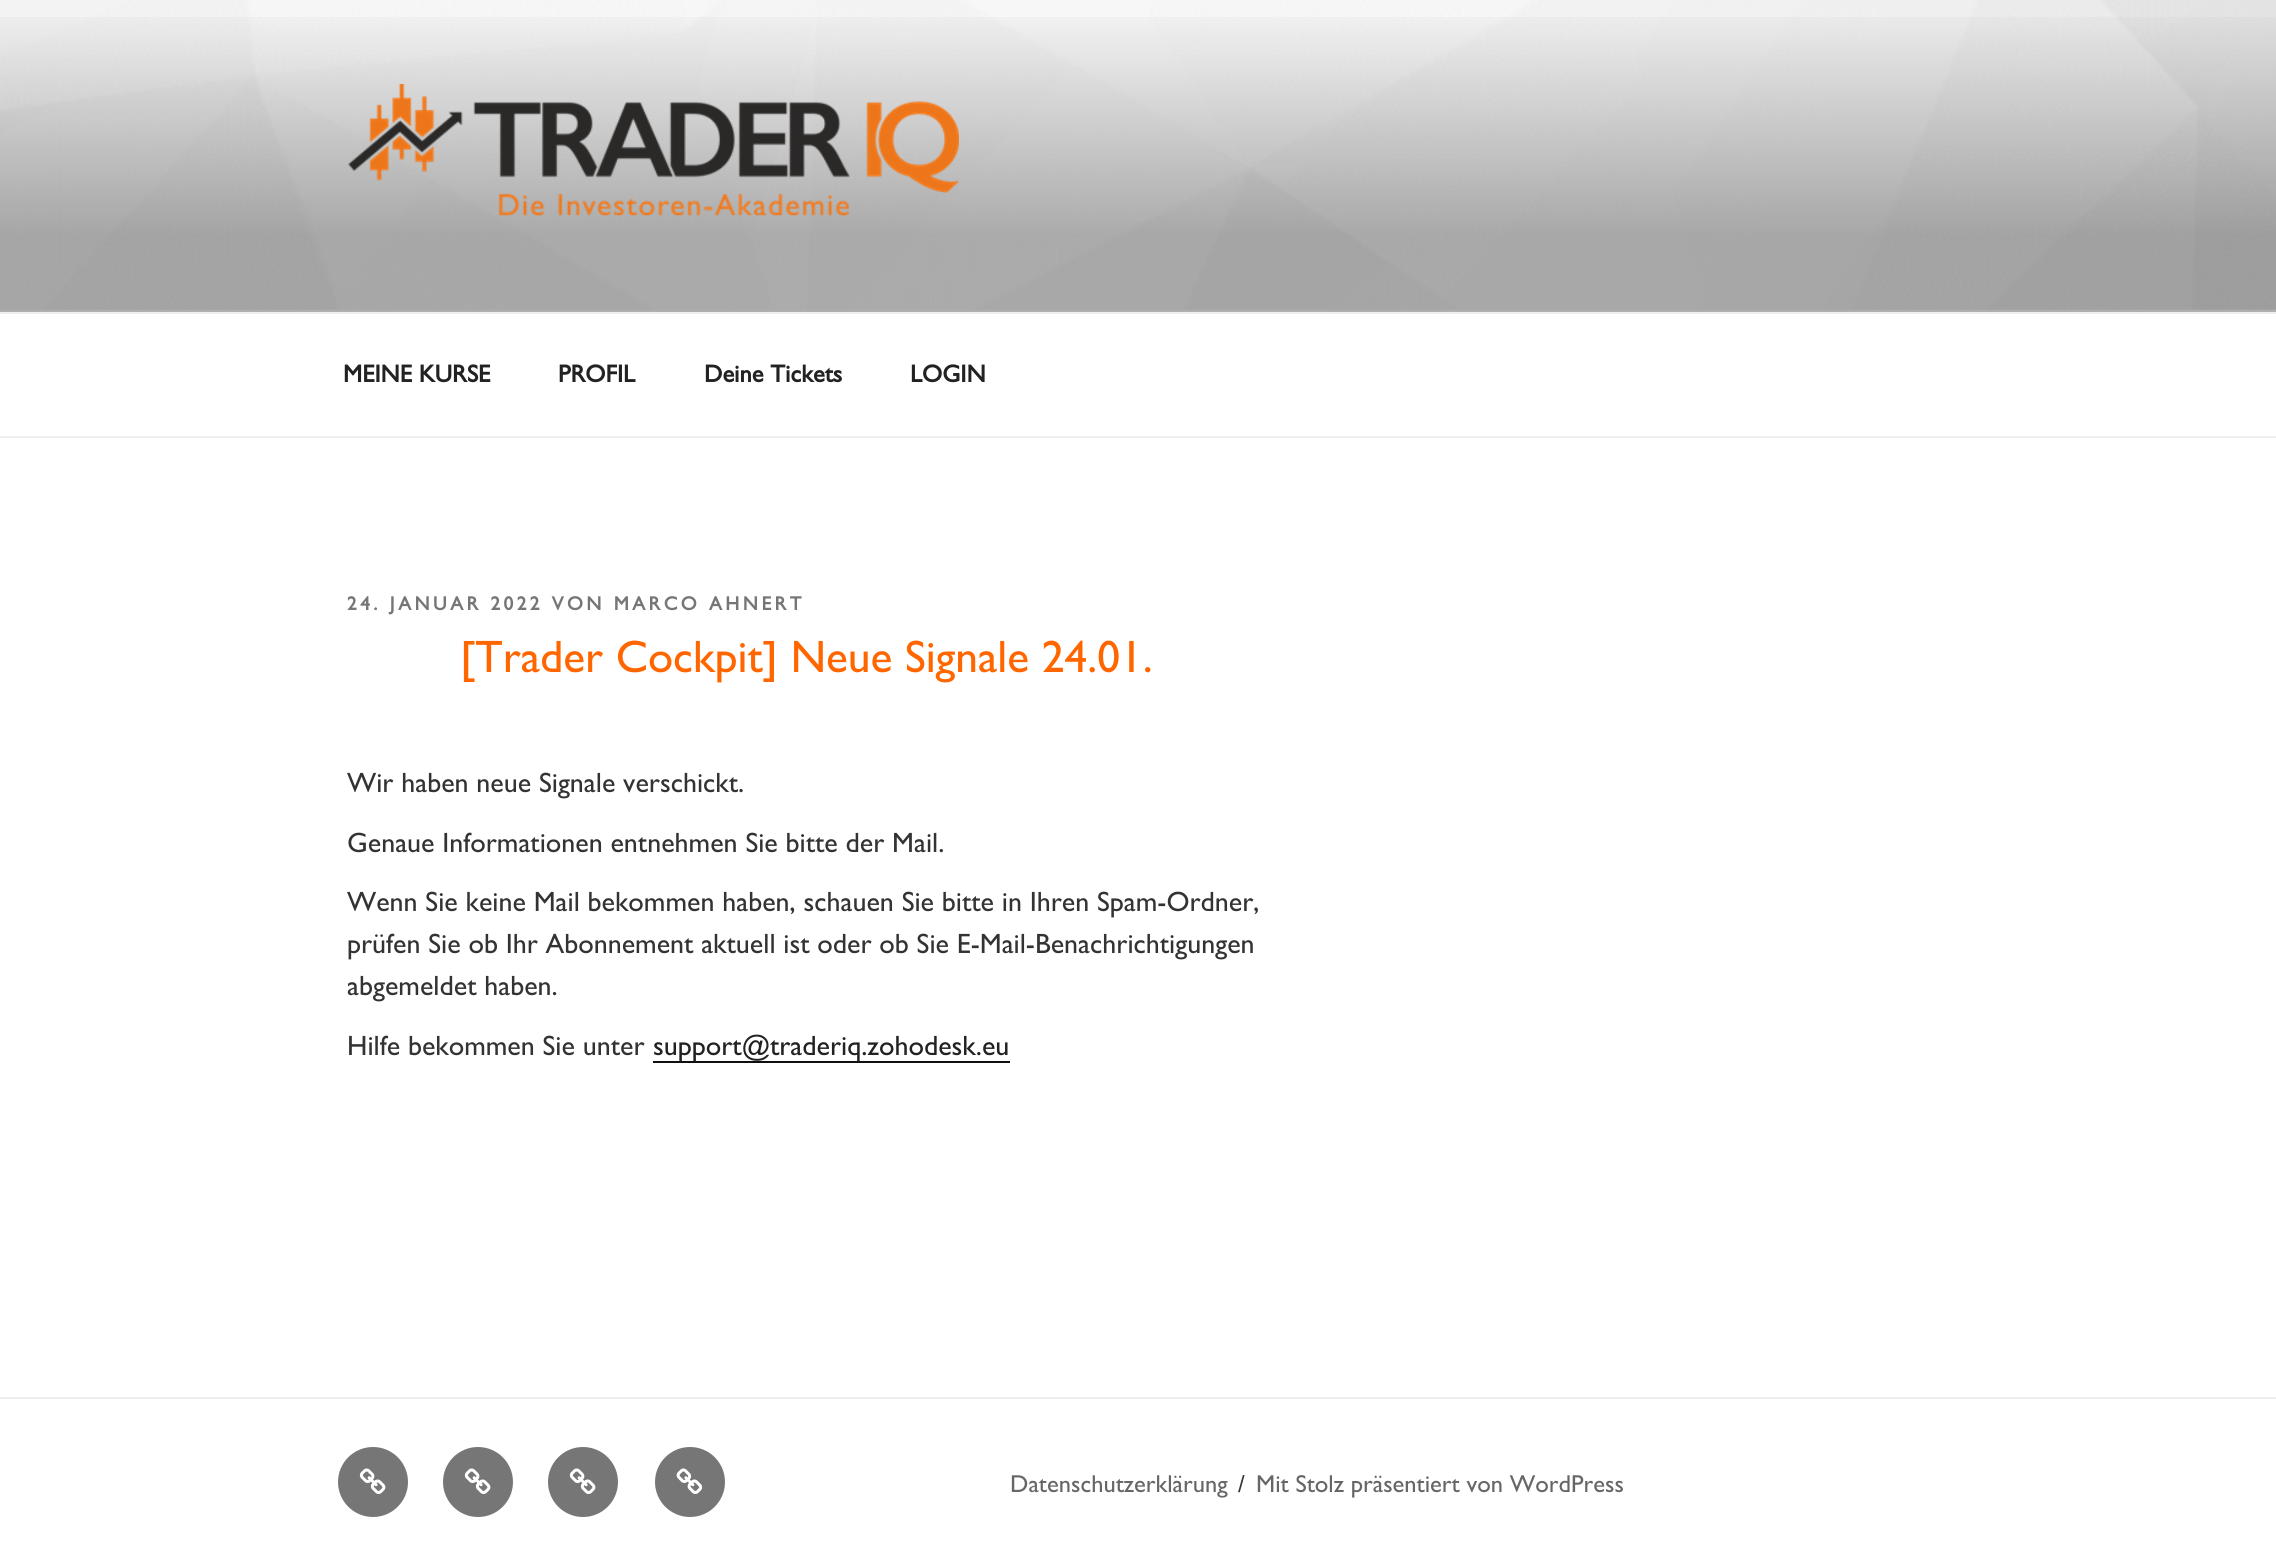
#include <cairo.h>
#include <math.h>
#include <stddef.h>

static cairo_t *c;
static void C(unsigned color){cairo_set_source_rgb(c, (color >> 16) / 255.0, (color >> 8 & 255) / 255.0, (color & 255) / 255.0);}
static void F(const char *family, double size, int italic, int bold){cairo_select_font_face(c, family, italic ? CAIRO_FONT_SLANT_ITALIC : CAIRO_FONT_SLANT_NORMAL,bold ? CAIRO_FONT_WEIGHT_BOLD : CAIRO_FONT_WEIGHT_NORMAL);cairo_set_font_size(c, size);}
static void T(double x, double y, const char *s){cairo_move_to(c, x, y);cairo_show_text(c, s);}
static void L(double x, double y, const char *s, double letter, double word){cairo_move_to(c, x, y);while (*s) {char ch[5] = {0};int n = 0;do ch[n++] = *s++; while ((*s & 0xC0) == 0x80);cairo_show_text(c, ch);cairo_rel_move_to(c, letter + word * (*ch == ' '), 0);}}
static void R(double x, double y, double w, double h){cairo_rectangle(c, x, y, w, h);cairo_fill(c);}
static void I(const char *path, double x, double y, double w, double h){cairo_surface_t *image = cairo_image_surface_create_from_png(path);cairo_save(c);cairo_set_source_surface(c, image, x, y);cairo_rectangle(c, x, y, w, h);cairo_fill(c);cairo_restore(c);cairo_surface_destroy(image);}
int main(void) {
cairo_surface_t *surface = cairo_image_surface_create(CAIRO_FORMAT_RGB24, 2276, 1545);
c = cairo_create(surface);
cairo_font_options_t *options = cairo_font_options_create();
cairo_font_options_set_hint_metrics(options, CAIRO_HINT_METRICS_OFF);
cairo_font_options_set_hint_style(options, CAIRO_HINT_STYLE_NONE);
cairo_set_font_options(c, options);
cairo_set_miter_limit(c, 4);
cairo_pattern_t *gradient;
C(0xffffff);
cairo_paint(c);
C(0xfafafa);
R(0,309,2276,3);
I("1.png",0,0,2276,310);
gradient = cairo_pattern_create_linear(1138,0,1138,312);
cairo_pattern_add_color_stop_rgba(gradient,0,0,0,0,0);
cairo_pattern_add_color_stop_rgba(gradient,.75,0,0,0,.3);
cairo_pattern_add_color_stop_rgba(gradient,1,0,0,0,.3);
cairo_set_source(c,gradient);
cairo_pattern_destroy(gradient);
R(0,17,2276,295);
I("2.png",348,84,611,132);
C(0xeeeeee);
R(0,312,2276,2);
R(0,436,2276,2);
F("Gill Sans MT",24.5,0,1);
C(0x222222);
T(343,382,"MEINE KURSE");
T(558,382,"PROFIL");
T(704,382,"Deine Tickets");
T(910,382,"LOGIN");
F("Gill Sans MT",19.25,0,1);
C(0x767676);
L(347,610,"24. JANUAR 2022 VON MARCO AHNERT",3.5,0);
F("Gill Sans MT",45.5,0,0);
C(0xff6600);
T(460,672,"[Trader Cockpit] Neue Signale 24.01.");
F("Gill Sans MT",28,0,0);
C(0x333333);
T(347,792,"Wir haben neue Signale verschickt.");
T(347,852,"Genaue Informationen entnehmen Sie bitte der Mail.");
T(347,911,"Wenn Sie keine Mail bekommen haben, schauen Sie bitte in Ihren Spam-Ordner,");
T(347,953,"prüfen Sie ob Ihr Abonnement aktuell ist oder ob Sie E-Mail-Benachrichtigungen");
T(347,995,"abgemeldet haben.");
T(347,1055,"Hilfe bekommen Sie unter");
C(0x0f0f0f);
R(653,1061,357,2);
C(0x222222);
T(653,1055,"support@traderiq.zohodesk.eu");
C(0xeeeeee);
R(0,1397,2276,2);
C(0x767676);
cairo_new_path(c);
cairo_arc(c,373,1482,35,0,2 * M_PI);
cairo_fill(c);
I("3.png",359,1468,27,26);
cairo_arc(c,478,1482,35,0,2 * M_PI);
cairo_fill(c);
I("3.png",464,1468,27,26);
cairo_arc(c,583,1482,35,0,2 * M_PI);
cairo_fill(c);
I("3.png",569,1468,27,26);
cairo_arc(c,690,1482,35,0,2 * M_PI);
cairo_fill(c);
I("4.png",676,1468,27,26);
F("Gill Sans MT",24.5,0,0);
C(0x666666);
T(1010,1492,"Datenschutzerklärung");
C(0x333333);
T(1238,1492,"/");
C(0x666666);
T(1256,1492,"Mit Stolz präsentiert von WordPress");
cairo_surface_write_to_png(surface, "o.png");
cairo_font_options_destroy(options);
cairo_destroy(c);
cairo_surface_destroy(surface);
return 0;
}
